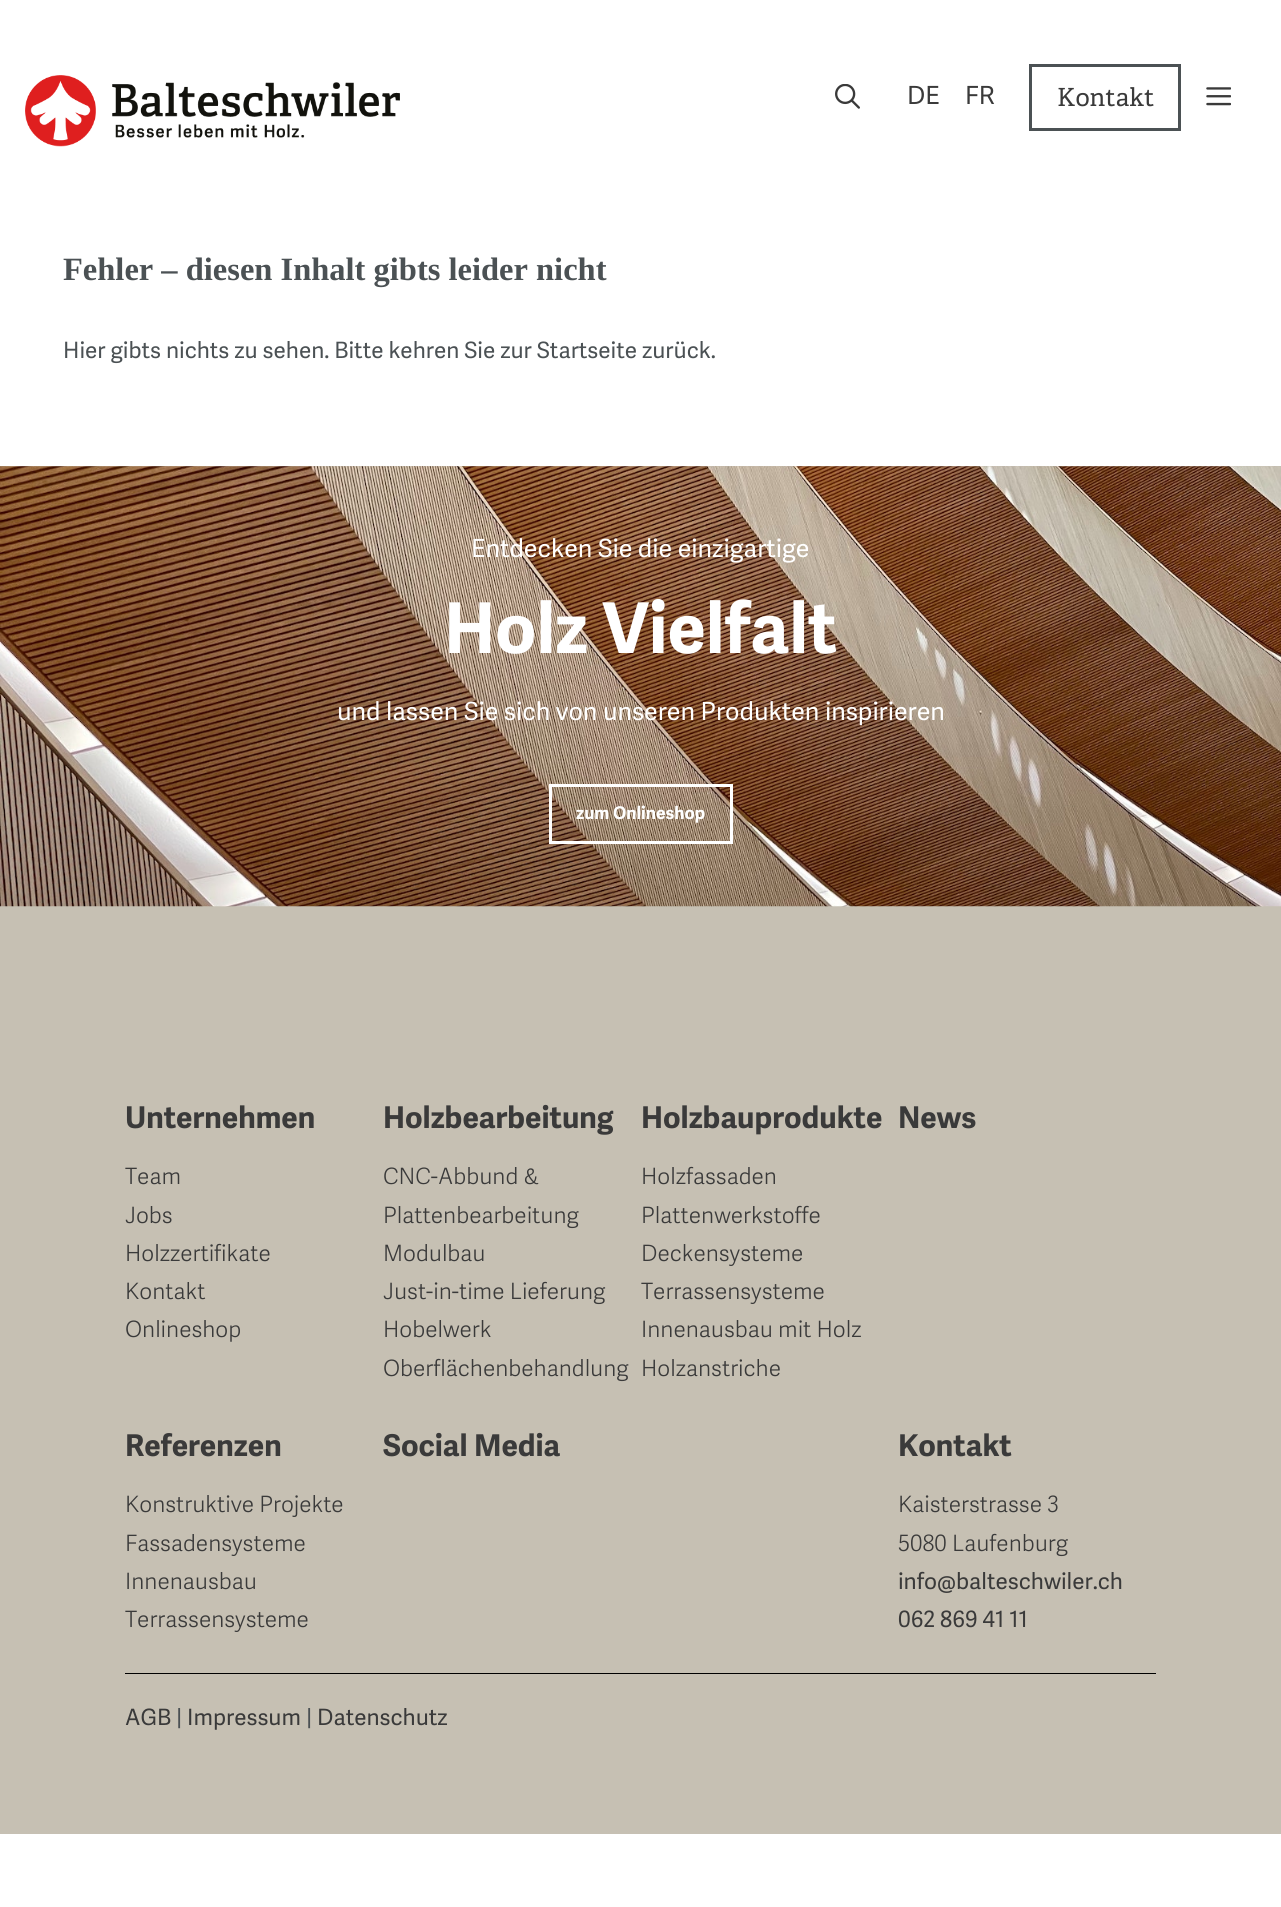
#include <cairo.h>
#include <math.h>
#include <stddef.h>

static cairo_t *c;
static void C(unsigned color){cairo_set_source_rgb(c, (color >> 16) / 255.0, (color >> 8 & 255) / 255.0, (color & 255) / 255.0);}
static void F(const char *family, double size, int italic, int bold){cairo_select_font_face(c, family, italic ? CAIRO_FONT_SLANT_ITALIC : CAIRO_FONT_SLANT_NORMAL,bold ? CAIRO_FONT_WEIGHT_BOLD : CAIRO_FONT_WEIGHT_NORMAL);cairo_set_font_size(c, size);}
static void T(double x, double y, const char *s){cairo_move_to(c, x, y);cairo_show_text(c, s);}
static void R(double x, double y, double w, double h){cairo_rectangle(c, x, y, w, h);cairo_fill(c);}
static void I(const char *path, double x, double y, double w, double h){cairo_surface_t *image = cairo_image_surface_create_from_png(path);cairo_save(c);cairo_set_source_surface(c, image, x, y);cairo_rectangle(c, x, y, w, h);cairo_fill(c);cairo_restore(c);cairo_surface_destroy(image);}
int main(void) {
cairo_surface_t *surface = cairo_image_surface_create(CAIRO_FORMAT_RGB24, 1281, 1907);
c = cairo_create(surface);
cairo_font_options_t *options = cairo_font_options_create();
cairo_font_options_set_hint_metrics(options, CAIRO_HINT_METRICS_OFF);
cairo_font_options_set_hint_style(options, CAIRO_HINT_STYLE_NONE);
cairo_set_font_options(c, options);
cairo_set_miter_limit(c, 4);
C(0xffffff);
cairo_paint(c);
I("1.png",25,75,375,72);
I("2.png",835,84,25,25);
F("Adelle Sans",25,0,0);
C(0x3a3a3a);
T(907,104,"DE");
T(965,104,"FR");
cairo_rectangle(c,1030.5,65.5,149,64);
C(0x4b5154);
cairo_set_line_width(c,3);
cairo_stroke(c);
F("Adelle",25,0,0);
C(0x3a3a3a);
T(1057,106,"Kontakt");
I("3.png",1206,87,25,19);
F("Liberation Serif",32.5,0,1);
C(0x4b5154);
T(63,280,"Fehler – diesen Inhalt gibts leider nicht");
F("Adelle Sans",22.5,0,0);
T(63,358,"Hier gibts nichts zu sehen. Bitte kehren Sie zur Startseite zurück.");
C(0xc6c0b3);
R(0,466,1281,1368);
I("4.png",0,466,1281,441);
F("Adelle Sans",25,0,0);
C(0xffffff);
T(471,557,"Entdecken Sie die einzigartige");
F("Adelle Sans",70,0,1);
T(444,653,"Holz Vielfalt");
F("Adelle Sans",25,0,0);
T(337,720,"und lassen Sie sich von unseren Produkten inspirieren");
cairo_rectangle(c,550.5,785.5,181,57);
cairo_stroke(c);
F("Adelle Sans",17.5,0,1);
T(576,819,"zum Onlineshop");
F("Adelle Sans",30,0,1);
C(0x3a3a3a);
T(125,1128,"Unternehmen");
F("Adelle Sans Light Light",22.5,0,0);
T(125,1184,"Team");
T(125,1223,"Jobs");
T(125,1261,"Holzzertifikate");
T(125,1299,"Kontakt");
T(125,1337,"Onlineshop");
F("Adelle Sans",30,0,1);
T(383,1128,"Holzbearbeitung");
F("Adelle Sans Light Light",22.5,0,0);
T(383,1184,"CNC-Abbund &");
T(383,1223,"Plattenbearbeitung");
T(383,1261,"Modulbau");
T(383,1299,"Just-in-time Lieferung");
T(383,1337,"Hobelwerk");
T(383,1376,"Oberflächenbehandlung");
F("Adelle Sans",30,0,1);
T(641,1128,"Holzbauprodukte");
F("Adelle Sans Light Light",22.5,0,0);
T(641,1184,"Holzfassaden");
T(641,1223,"Plattenwerkstoffe");
T(641,1261,"Deckensysteme");
T(641,1299,"Terrassensysteme");
T(641,1337,"Innenausbau mit Holz");
T(641,1376,"Holzanstriche");
F("Adelle Sans",30,0,1);
T(898,1128,"News");
T(125,1456,"Referenzen");
F("Adelle Sans Light Light",22.5,0,0);
T(125,1512,"Konstruktive Projekte");
T(125,1551,"Fassadensysteme");
T(125,1589,"Innenausbau");
T(125,1627,"Terrassensysteme");
F("Adelle Sans",30,0,1);
T(383,1456,"Social Media");
T(898,1456,"Kontakt");
F("Adelle Sans Light Light",22.5,0,0);
T(898,1512,"Kaisterstrasse 3");
T(898,1551,"5080 Laufenburg");
F("Adelle Sans",22.5,0,0);
T(898,1589,"info@balteschwiler.ch");
T(898,1627,"062 869 41 11");
C(0x000000);
R(125,1673,1031,1);
C(0x3a3a3a);
T(125,1725,"AGB");
C(0x4b5154);
T(176,1725,"|");
C(0x3a3a3a);
T(187,1725,"Impressum");
C(0x4b5154);
T(306,1725,"|");
C(0x3a3a3a);
T(317,1725,"Datenschutz");
cairo_surface_write_to_png(surface, "o.png");
cairo_font_options_destroy(options);
cairo_destroy(c);
cairo_surface_destroy(surface);
return 0;
}
